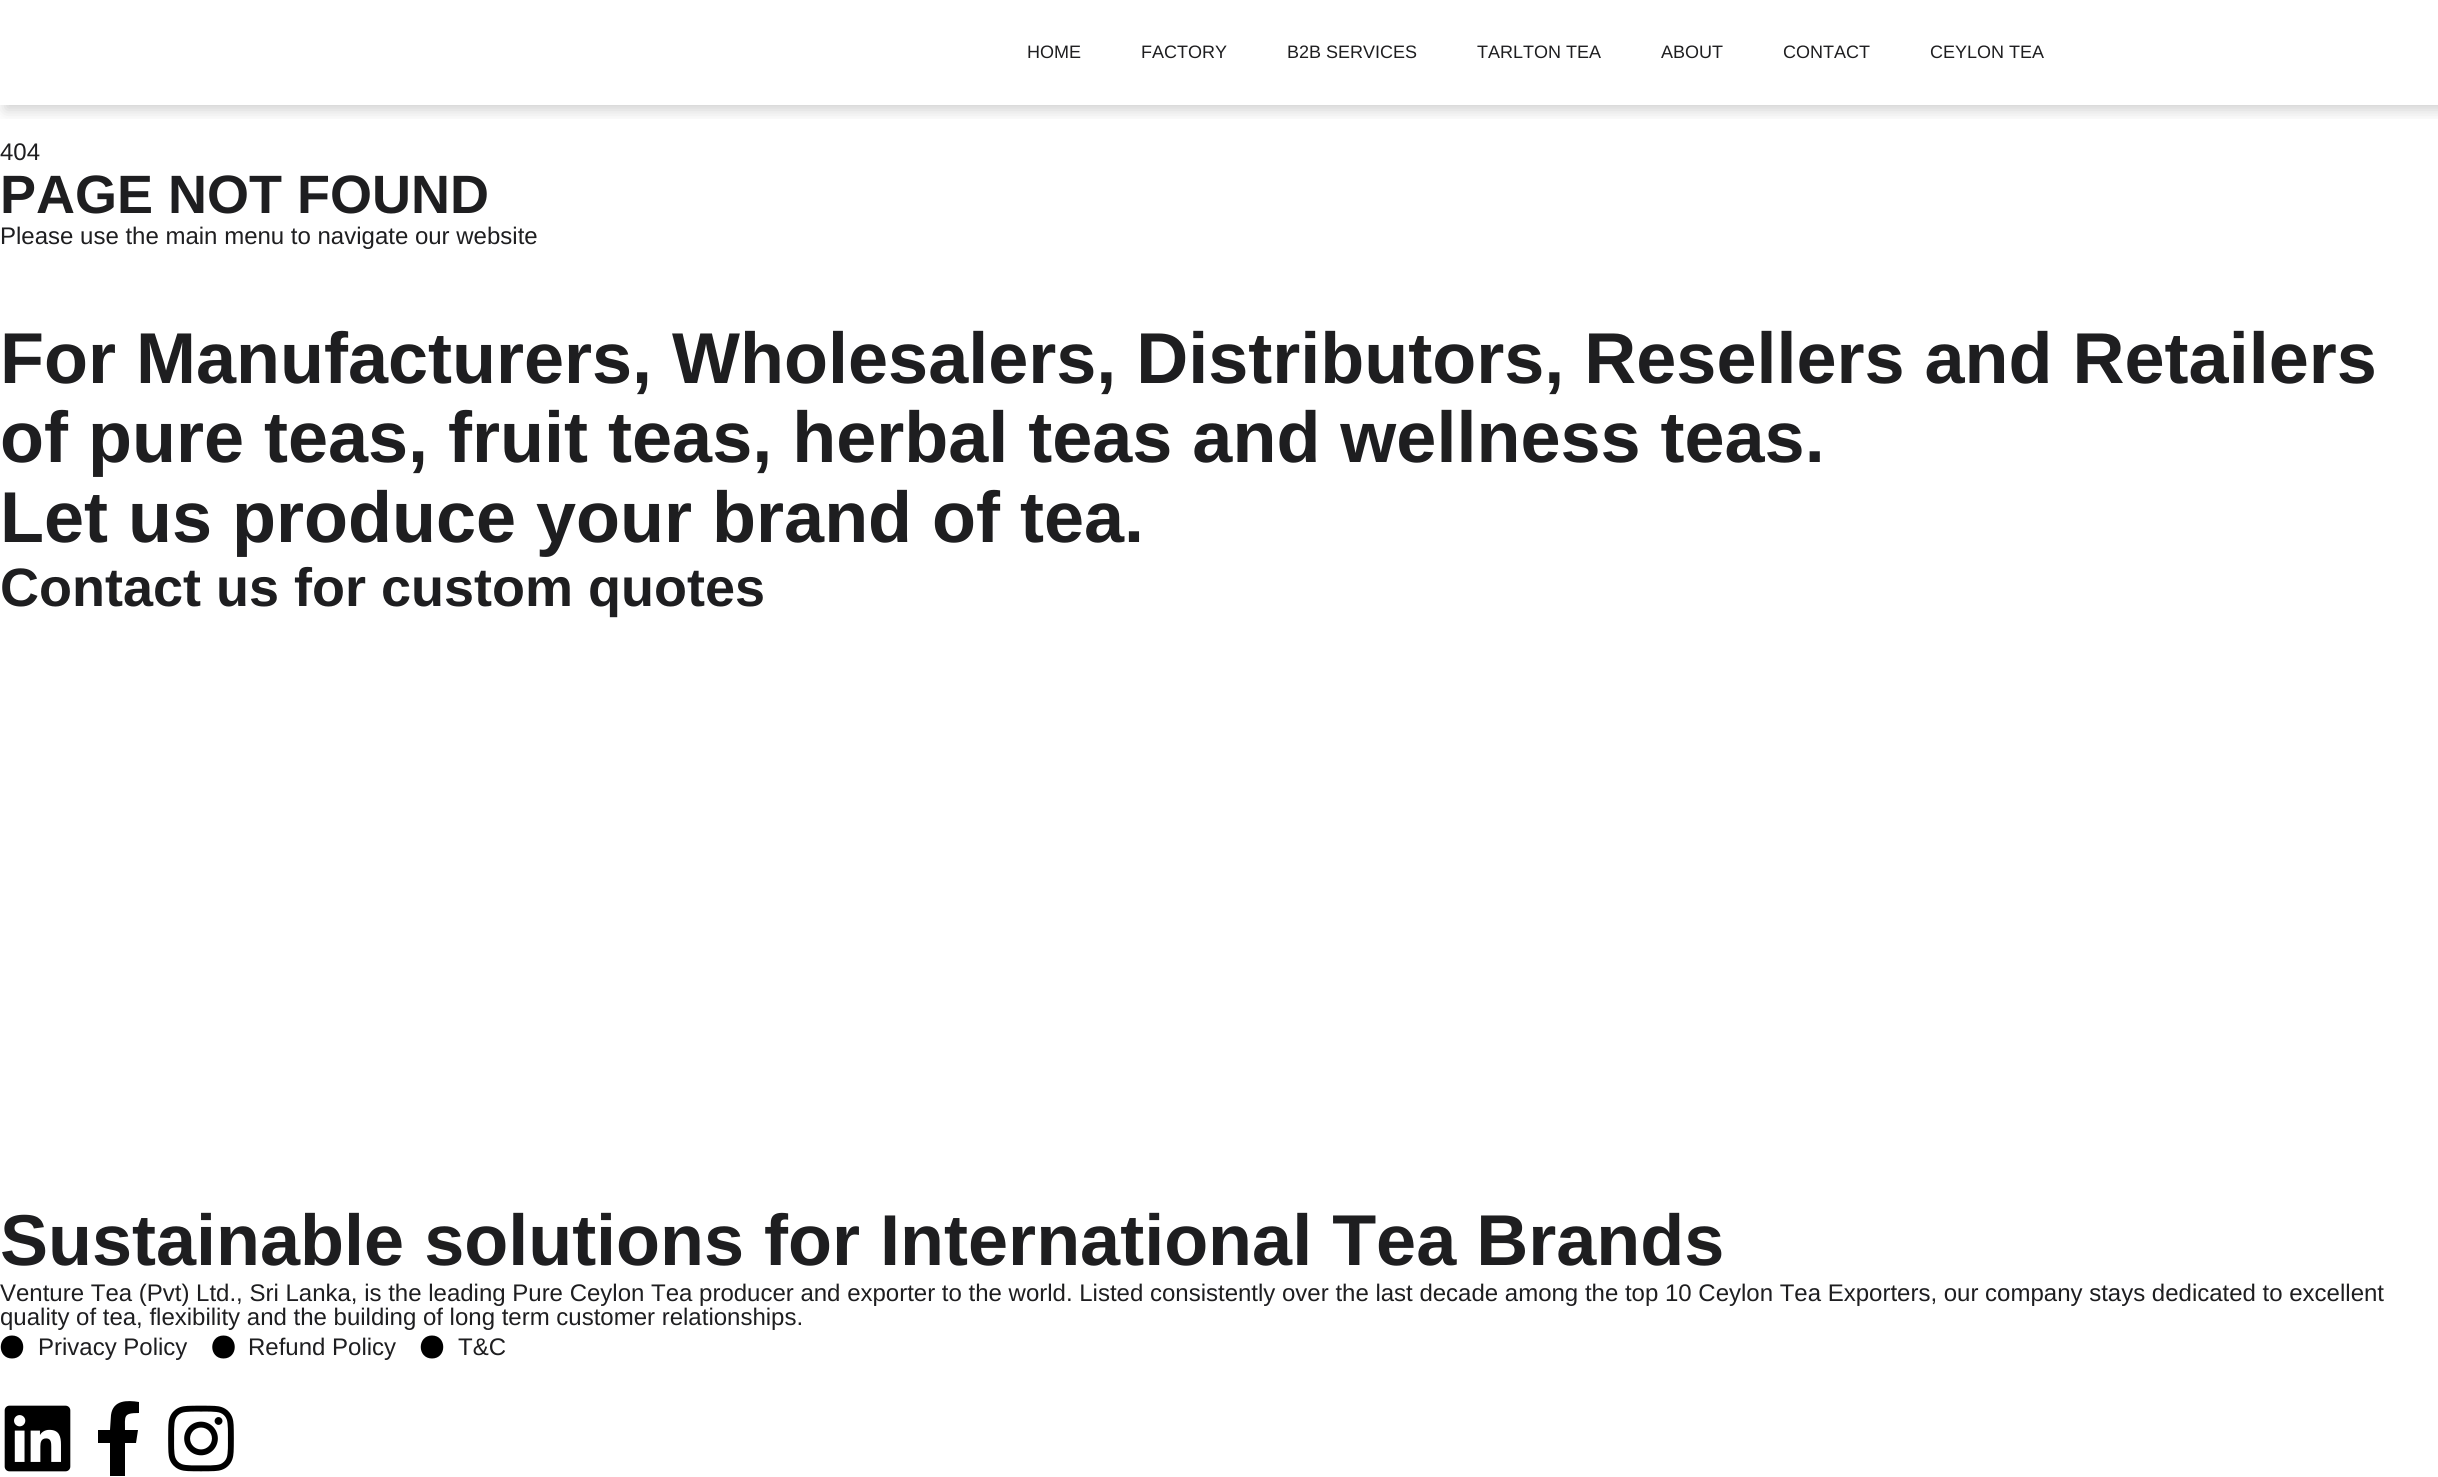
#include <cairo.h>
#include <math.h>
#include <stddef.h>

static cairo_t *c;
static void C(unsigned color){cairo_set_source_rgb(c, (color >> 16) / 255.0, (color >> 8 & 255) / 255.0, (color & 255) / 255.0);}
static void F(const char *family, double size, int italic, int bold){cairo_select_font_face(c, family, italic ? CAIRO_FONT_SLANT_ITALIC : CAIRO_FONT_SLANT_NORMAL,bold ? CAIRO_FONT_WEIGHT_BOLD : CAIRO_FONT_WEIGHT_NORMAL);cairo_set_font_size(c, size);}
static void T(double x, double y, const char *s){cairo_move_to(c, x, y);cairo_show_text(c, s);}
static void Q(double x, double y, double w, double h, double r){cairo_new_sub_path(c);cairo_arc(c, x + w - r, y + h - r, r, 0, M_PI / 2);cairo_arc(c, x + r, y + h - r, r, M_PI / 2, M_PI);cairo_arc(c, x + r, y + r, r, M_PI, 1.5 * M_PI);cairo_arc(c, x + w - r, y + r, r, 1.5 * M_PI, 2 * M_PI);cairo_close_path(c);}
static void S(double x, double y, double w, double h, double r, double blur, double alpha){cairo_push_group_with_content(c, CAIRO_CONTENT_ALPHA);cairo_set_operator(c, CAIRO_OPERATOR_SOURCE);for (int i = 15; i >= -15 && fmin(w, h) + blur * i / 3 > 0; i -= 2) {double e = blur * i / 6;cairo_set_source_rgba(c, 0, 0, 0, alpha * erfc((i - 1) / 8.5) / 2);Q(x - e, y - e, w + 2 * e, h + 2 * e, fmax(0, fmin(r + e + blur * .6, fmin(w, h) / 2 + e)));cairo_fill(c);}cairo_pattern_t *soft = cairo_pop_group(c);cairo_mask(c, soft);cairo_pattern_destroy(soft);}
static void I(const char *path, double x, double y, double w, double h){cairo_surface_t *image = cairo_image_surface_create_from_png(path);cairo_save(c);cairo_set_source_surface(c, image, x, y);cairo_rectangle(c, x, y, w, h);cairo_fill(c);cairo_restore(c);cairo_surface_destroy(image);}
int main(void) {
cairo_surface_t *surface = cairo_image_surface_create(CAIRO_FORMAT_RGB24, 2438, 1477);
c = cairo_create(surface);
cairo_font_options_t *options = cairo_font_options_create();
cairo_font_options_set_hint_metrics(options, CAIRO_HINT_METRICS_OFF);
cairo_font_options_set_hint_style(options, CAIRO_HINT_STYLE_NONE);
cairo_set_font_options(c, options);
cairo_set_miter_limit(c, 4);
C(0xffffff);
cairo_paint(c);
cairo_save(c);
cairo_rectangle(c,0,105,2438,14);
cairo_clip(c);
C(0x000000);
S(5,5,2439,105,0,7.5,.19);
cairo_restore(c);
F("Liberation Sans",18,0,0);
C(0x1e1e20);
T(1027,58,"HOME");
T(1141,58,"FACTORY");
T(1287,58,"B2B SERVICES");
T(1477,58,"TARLTON TEA");
T(1661,58,"ABOUT");
T(1783,58,"CONTACT");
T(1930,58,"CEYLON TEA");
F("Liberation Sans",24,0,0);
T(0,160,"404");
F("Liberation Sans",54,0,1);
T(0,213,"PAGE NOT FOUND");
F("Liberation Sans",24,0,0);
T(0,244,"Please use the main menu to navigate our website");
F("Liberation Sans",72,0,1);
T(0,383,"For Manufacturers, Wholesalers, Distributors, Resellers and Retailers");
T(0,462,"of pure teas, fruit teas, herbal teas and wellness teas.");
T(0,542,"Let us produce your brand of tea.");
F("Liberation Sans",54,0,1);
T(0,606,"Contact us for custom quotes");
F("Liberation Sans",72,0,1);
T(0,1265,"Sustainable solutions for International Tea Brands");
F("Liberation Sans",24,0,0);
T(0,1301,"Venture Tea (Pvt) Ltd., Sri Lanka, is the leading Pure Ceylon Tea producer and exporter to the world. Listed consistently over the last decade among the top 10 Ceylon Tea Exporters, our company stays dedicated to excellent");
T(0,1325,"quality of tea, flexibility and the building of long term customer relationships.");
C(0x000000);
cairo_new_path(c);
cairo_move_to(c,12,1335.5);
cairo_curve_to(c,-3,1335.5,-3,1358.5,12,1358.5);
cairo_curve_to(c,27,1358.5,27,1335.5,12,1335.5);
cairo_close_path(c);
cairo_fill(c);
C(0x1e1e20);
T(38,1355,"Privacy Policy");
C(0x000000);
cairo_new_path(c);
cairo_move_to(c,223.5,1335.5);
cairo_curve_to(c,208.5,1335.5,208.5,1358.5,223.5,1358.5);
cairo_curve_to(c,238.5,1358.5,238.5,1335.5,223.5,1335.5);
cairo_close_path(c);
cairo_fill(c);
C(0x1e1e20);
T(248,1355,"Refund Policy");
C(0x000000);
cairo_new_path(c);
cairo_move_to(c,432,1335.5);
cairo_curve_to(c,417,1335.5,417,1358.5,432,1358.5);
cairo_curve_to(c,447,1358.5,447,1335.5,432,1335.5);
cairo_close_path(c);
cairo_fill(c);
C(0x1e1e20);
T(458,1355,"T&C");
I("1.png",4,1405,67,67);
C(0x000000);
cairo_new_path(c);
cairo_move_to(c,136,1443);
cairo_line_to(c,138,1430);
cairo_line_to(c,125,1430);
cairo_curve_to(c,125,1416,123,1413,139,1413);
cairo_line_to(c,139,1402);
cairo_curve_to(c,127,1400,113,1400,111,1415);
cairo_line_to(c,110,1430);
cairo_line_to(c,98,1430);
cairo_line_to(c,98,1443);
cairo_line_to(c,110,1443);
cairo_line_to(c,110,1476);
cairo_line_to(c,125,1476);
cairo_line_to(c,125,1443);
cairo_close_path(c);
cairo_fill(c);
I("2.png",168,1405,66,67);
cairo_surface_write_to_png(surface, "o.png");
cairo_font_options_destroy(options);
cairo_destroy(c);
cairo_surface_destroy(surface);
return 0;
}
